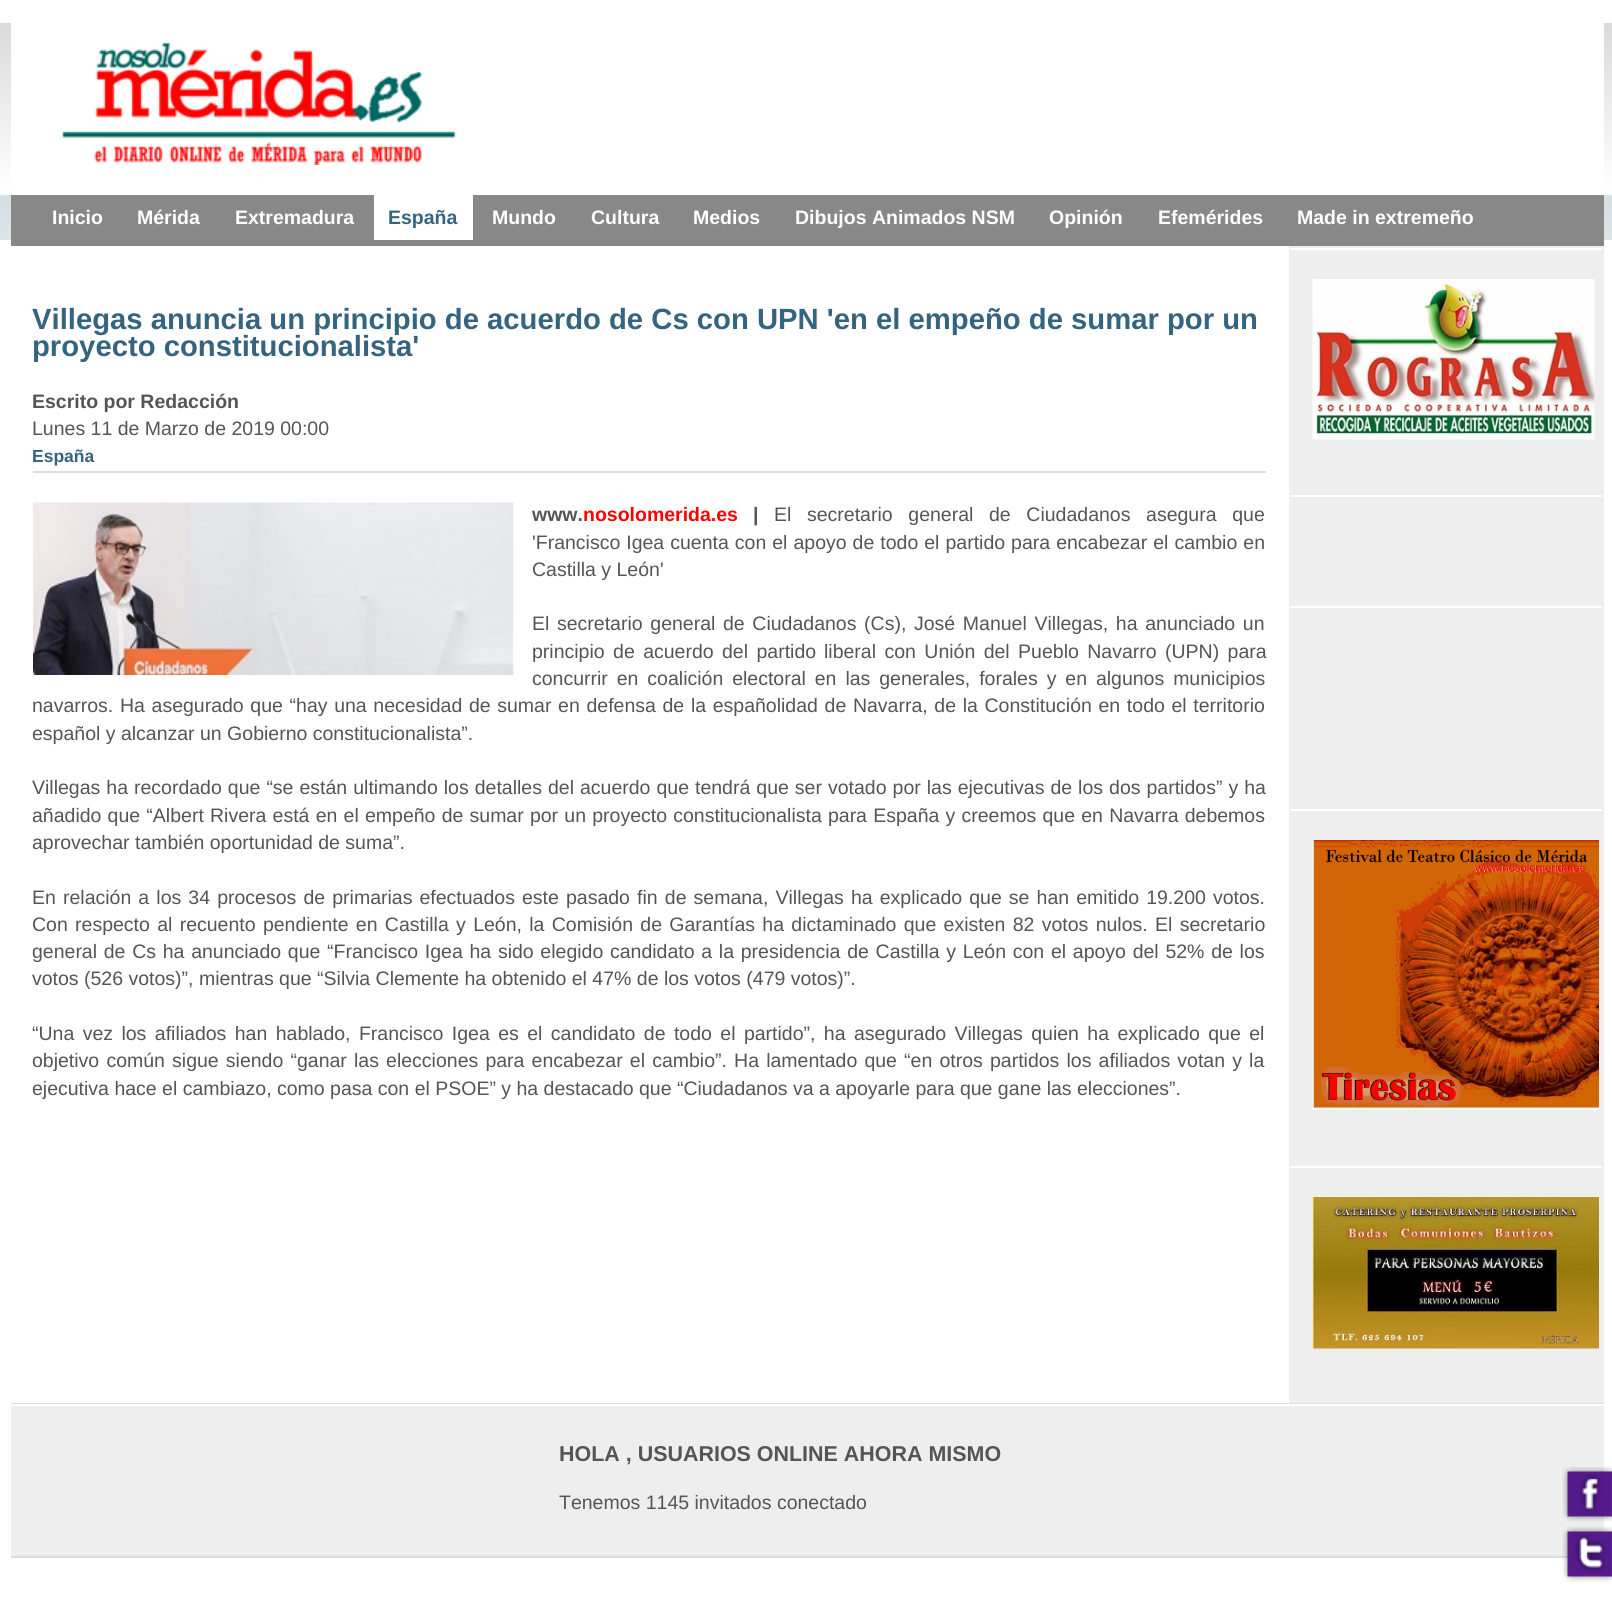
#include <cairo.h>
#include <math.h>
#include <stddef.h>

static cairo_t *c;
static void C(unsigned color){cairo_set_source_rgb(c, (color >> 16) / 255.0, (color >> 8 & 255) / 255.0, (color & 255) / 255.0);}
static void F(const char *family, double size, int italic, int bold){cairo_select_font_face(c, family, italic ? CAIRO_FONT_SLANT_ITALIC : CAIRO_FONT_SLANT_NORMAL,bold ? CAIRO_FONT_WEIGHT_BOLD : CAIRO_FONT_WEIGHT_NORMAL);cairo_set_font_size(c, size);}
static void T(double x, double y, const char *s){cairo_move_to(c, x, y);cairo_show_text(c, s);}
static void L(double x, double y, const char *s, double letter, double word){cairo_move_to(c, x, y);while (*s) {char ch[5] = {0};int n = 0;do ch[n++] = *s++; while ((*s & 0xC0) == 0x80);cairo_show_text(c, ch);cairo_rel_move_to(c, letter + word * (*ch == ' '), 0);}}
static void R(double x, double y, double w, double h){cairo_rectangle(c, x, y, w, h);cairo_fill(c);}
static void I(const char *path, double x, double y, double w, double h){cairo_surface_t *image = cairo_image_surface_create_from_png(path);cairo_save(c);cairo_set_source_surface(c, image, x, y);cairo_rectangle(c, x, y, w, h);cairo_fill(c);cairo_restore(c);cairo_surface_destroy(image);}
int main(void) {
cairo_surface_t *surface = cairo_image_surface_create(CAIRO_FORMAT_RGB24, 1612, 1612);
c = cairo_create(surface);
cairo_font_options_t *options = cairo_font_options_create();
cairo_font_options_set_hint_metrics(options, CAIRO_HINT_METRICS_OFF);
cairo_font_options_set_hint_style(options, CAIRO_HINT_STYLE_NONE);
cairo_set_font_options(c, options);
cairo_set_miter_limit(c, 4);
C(0xffffff);
cairo_paint(c);
I("1.png",0,23,1612,217);
C(0xffffff);
R(11,23,1593,172);
I("2.png",61,42,396,123);
C(0x888888);
R(11,195,1593,51);
F("Liberation Sans",19.5,0,1);
C(0xffffff);
T(52,224,"Inicio");
T(137,224,"Mérida");
T(235,224,"Extremadura");
R(374,195,99,45);
C(0x34647f);
T(388,224,"España");
C(0xffffff);
T(492,224,"Mundo");
T(591,224,"Cultura");
T(693,224,"Medios");
T(795,224,"Dibujos Animados NSM");
T(1049,224,"Opinión");
T(1158,224,"Efemérides");
T(1297,224,"Made in extremeño");
C(0xdddddd);
R(11,1403,1593,1);
C(0xeeeeee);
R(1289,246,315,1157);
F("Liberation Sans",29.25,0,1);
C(0x34647f);
T(32,329,"Villegas anuncia un principio de acuerdo de Cs con UPN 'en el empeño de sumar por un");
T(32,356,"proyecto constitucionalista'");
F("Liberation Sans",19.5,0,1);
C(0x555555);
T(32,408,"Escrito por Redacción");
F("Liberation Sans",19.5,0,0);
T(32,435,"Lunes 11 de Marzo de 2019 00:00");
C(0xdedede);
R(33,471,1233,2);
F("Liberation Sans",17.5,0,1);
C(0x34647f);
T(32,462,"España");
I("3.png",33,502,481,173);
F("Liberation Sans",19.5,0,1);
C(0x555555);
T(532,521,"www.");
C(0xff0000);
T(583,521,"nosolomerida.es");
C(0x555555);
T(753,521,"|");
F("Liberation Sans",19.5,0,0);
L(774,521,"El secretario general de Ciudadanos asegura que",0,10.25);
L(532,549,"'Francisco Igea cuenta con el apoyo de todo el partido para encabezar el cambio en",0,.6);
T(532,576,"Castilla y León'");
L(532,630,"El secretario general de Ciudadanos (Cs), José Manuel Villegas, ha anunciado un",0,2.25);
L(532,658,"principio de acuerdo del partido",0,3);
L(824,658,"liberal con Unión del Pueblo Navarro (UPN) para",0,3);
L(532,685,"concurrir en coalición electoral en las generales, forales y en algunos municipios",0,3.5);
L(32,712,"navarros. Ha asegurado que “hay una necesidad de sumar en defensa de la españolidad de Navarra, de la Constitución en todo el territorio",0,1.25);
T(32,740,"español y alcanzar un Gobierno constitucionalista”.");
L(32,794,"Villegas ha recordado que “se están ultimando los detalles del acuerdo que tendrá que ser votado por las ejecutivas de los dos partidos” y ha",0,.6);
L(32,822,"añadido que “Albert Rivera está en el empeño de sumar por un proyecto constitucionalista para España y creemos que en Navarra debemos",0,.8);
T(32,849,"aprovechar también oportunidad de suma”.");
L(32,904,"En relación a los 34 procesos de primarias efectuados este pasado fin de semana, Villegas ha explicado que se han emitido 19.200 votos.",0,1.7);
L(32,931,"Con respecto al recuento pendiente en Castilla y León, la Comisión de Garantías ha dictaminado que existen 82 votos nulos. El secretario",0,1.9);
L(32,958,"general de Cs ha anunciado que “Francisco Igea ha sido elegido candidato a la presidencia de Castilla y León con el apoyo del 52% de los",0,1.3);
T(32,985,"votos (526 votos)”, mientras que “Silvia Clemente ha obtenido el 47% de los votos (479 votos)”.");
L(32,1040,"“Una vez los afiliados han hablado, Francisco Igea es el candidato de todo el partido”, ha asegurado Villegas quien ha explicado que el",0,3);
L(32,1067,"objetivo común sigue siendo “ganar las elecciones para encabezar el cambio”. Ha lamentado que “en otros partidos los afiliados votan y la",0,1.75);
T(32,1095,"ejecutiva hace el cambiazo, como pasa con el PSOE” y ha destacado que “Ciudadanos va a apoyarle para que gane las elecciones”.");
C(0xffffff);
R(1290,248,312,2);
I("4.png",1312,279,283,161);
R(1290,495,312,2);
R(1290,606,312,2);
R(1290,809,312,2);
I("5.png",1312,840,287,270);
R(1290,1166,312,2);
I("6.png",1312,1197,287,152);
C(0xeeeeee);
R(11,1406,1593,150);
C(0xdddddd);
R(11,1556,1557,2);
F("Liberation Sans",21.45,0,1);
C(0x555555);
T(559,1461,"HOLA , USUARIOS ONLINE AHORA MISMO");
F("Liberation Sans",19.5,0,0);
T(559,1509,"Tenemos 1145 invitados conectado");
I("7.png",1562,1467,50,55);
I("8.png",1562,1527,50,55);
cairo_surface_write_to_png(surface, "o.png");
cairo_font_options_destroy(options);
cairo_destroy(c);
cairo_surface_destroy(surface);
return 0;
}
